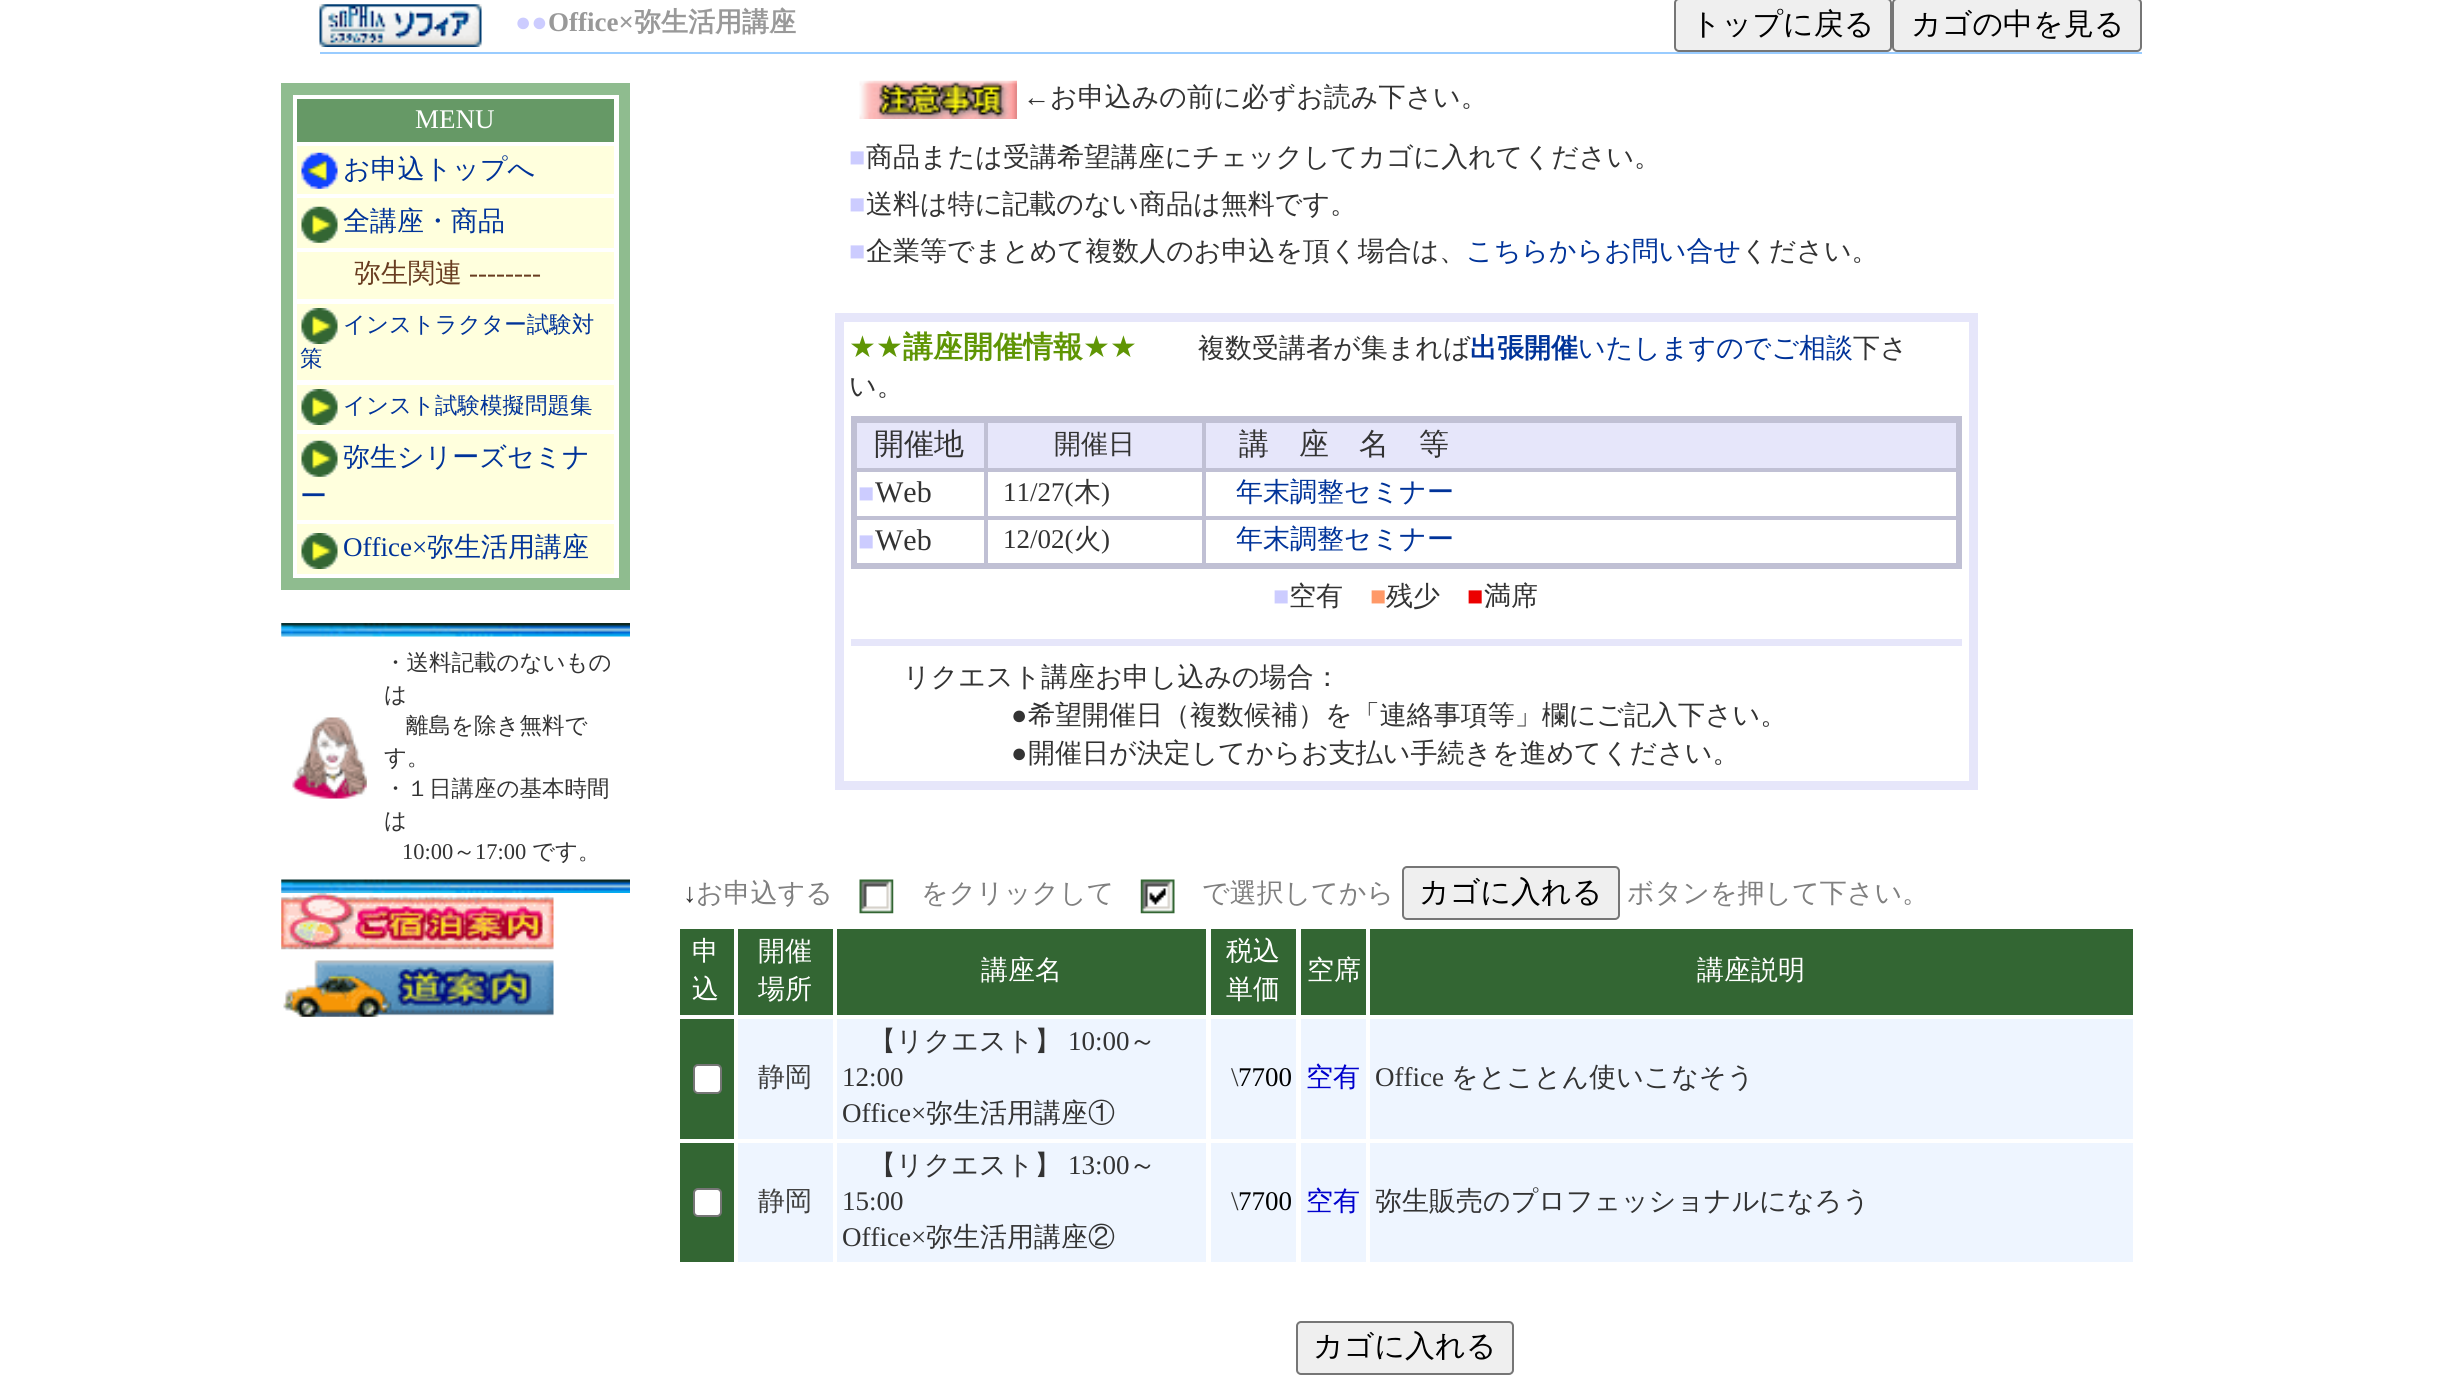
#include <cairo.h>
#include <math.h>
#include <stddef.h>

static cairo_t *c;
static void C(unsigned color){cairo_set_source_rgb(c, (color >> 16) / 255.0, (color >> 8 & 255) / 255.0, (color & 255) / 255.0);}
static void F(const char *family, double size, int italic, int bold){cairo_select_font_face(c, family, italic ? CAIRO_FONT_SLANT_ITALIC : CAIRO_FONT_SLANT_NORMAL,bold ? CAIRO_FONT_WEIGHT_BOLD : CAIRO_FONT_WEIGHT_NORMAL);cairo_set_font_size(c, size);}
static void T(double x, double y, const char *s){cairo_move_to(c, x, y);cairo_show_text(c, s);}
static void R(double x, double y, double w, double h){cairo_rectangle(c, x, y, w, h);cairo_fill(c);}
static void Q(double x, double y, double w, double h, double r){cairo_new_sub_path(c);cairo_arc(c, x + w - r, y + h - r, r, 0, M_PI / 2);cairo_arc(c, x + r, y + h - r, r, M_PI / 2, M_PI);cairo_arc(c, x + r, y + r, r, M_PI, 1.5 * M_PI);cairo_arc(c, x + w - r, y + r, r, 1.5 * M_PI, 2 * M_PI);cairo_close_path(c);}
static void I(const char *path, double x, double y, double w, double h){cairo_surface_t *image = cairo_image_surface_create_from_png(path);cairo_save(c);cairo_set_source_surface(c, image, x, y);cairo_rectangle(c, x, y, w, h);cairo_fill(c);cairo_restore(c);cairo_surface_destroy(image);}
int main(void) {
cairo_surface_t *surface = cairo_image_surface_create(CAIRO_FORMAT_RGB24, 2461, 1392);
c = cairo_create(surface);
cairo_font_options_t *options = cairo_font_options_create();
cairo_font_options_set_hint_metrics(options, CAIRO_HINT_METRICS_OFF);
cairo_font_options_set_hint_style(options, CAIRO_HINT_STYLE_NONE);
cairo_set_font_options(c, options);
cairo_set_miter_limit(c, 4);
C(0xffffff);
cairo_paint(c);
I("1.png",319,4,163,43);
F("Liberation Serif",27,0,0);
C(0xccccff);
T(515,31,"●●");
F("Liberation Serif",27,0,1);
C(0x999999);
T(548,31,"Office×");
F("WenQuanYi Zen Hei",27,0,1);
T(634,31,"弥生活用講座");
C(0xefefef);
Q(1675,-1,216,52,4);
cairo_fill_preserve(c);
C(0x767676);
cairo_stroke(c);
F("WenQuanYi Zen Hei Medium",30,0,0);
C(0x000000);
T(1691,34,"トップに戻る");
C(0xefefef);
Q(1893,-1,248,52,4);
cairo_fill_preserve(c);
C(0x767676);
cairo_stroke(c);
C(0x000000);
T(1911,34,"カゴの中を見る");
C(0x99ccff);
R(320,52,1822,2);
C(0x8fbc8f);
R(281,83,349,507);
C(0xffffff);
R(293,95,326,483);
C(0x669966);
R(297,99,317,43);
F("Liberation Serif",27,0,0);
C(0xffffff);
T(415,128,"MENU");
C(0xffffdd);
R(297,146,317,48);
I("2.png",301,152,37,37);
F("WenQuanYi Zen Hei Medium",27,0,0);
C(0x003399);
T(343,178,"お申込トップへ");
C(0xffffdd);
R(297,198,317,50);
I("3.png",301,206,37,37);
C(0x003399);
T(343,230,"全講座・商品");
C(0xffffdd);
R(297,252,317,47);
C(0x683c20);
T(354,282,"弥生関連");
F("Liberation Serif",27,0,0);
T(469,282,"--------");
C(0xffffdd);
R(297,304,317,76);
I("4.png",301,308,37,36);
F("WenQuanYi Zen Hei Medium",22.5,0,0);
C(0x003399);
T(343,332,"インストラクター試験対");
T(300,366,"策");
C(0xffffdd);
R(297,385,317,45);
I("4.png",301,389,37,36);
C(0x003399);
T(343,413,"インスト試験模擬問題集");
C(0xffffdd);
R(297,434,317,86);
I("3.png",301,440,37,37);
F("WenQuanYi Zen Hei Medium",27,0,0);
C(0x003399);
T(343,466,"弥生シリーズセミナ");
T(300,505,"ー");
C(0xffffdd);
R(297,524,317,50);
I("4.png",301,533,37,36);
F("Liberation Serif",27,0,0);
C(0x003399);
T(343,556,"Office×");
F("WenQuanYi Zen Hei Medium",27,0,0);
T(427,556,"弥生活用講座");
I("5.png",281,623,349,14);
I("6.png",292,717,75,82);
F("WenQuanYi Zen Hei Medium",22.5,0,0);
C(0x333333);
T(384,670,"・送料記載のないもの");
T(384,702,"は");
T(406,733,"離島を除き無料で");
T(384,765,"す。");
T(384,796,"・１日講座の基本時間");
T(384,828,"は");
F("Liberation Serif",22.5,0,0);
T(402,859,"10:00");
F("WenQuanYi Zen Hei Medium",22.5,0,0);
T(453,859,"～");
F("Liberation Serif",22.5,0,0);
T(475,859,"17:00");
F("WenQuanYi Zen Hei Medium",22.5,0,0);
T(532,859,"です。");
I("7.png",281,879,349,14);
I("8.png",281,893,273,57);
I("9.png",283,960,271,57);
I("10.png",859,80,158,39);
F("Liberation Serif",27,0,1);
T(1023,106,"←");
F("WenQuanYi Zen Hei Medium",27,0,0);
T(1050,106,"お申込みの前に必ずお読み下さい。");
F("Liberation Serif",27,0,0);
C(0xccccff);
T(849,166,"■");
F("WenQuanYi Zen Hei Medium",27,0,0);
C(0x333333);
T(866,166,"商品または受講希望講座にチェックしてカゴに入れてください。");
F("Liberation Serif",27,0,0);
C(0xccccff);
T(849,213,"■");
F("WenQuanYi Zen Hei Medium",27,0,0);
C(0x333333);
T(866,213,"送料は特に記載のない商品は無料です。");
F("Liberation Serif",27,0,0);
C(0xccccff);
T(849,260,"■");
F("WenQuanYi Zen Hei Medium",27,0,0);
C(0x333333);
T(866,260,"企業等でまとめて複数人のお申込を頂く場合は、");
C(0x003399);
T(1466,260,"こちらからお問い合せ");
C(0x333333);
T(1741,260,"ください。");
C(0xe6e6fa);
R(835,313,1143,477);
C(0xffffff);
R(844,322,1125,459);
F("DejaVu Sans",30,0,0);
C(0x5f9504);
T(849,357,"★★");
F("WenQuanYi Zen Hei",30,0,1);
T(903,357,"講座開催情報");
F("DejaVu Sans",30,0,0);
T(1083,357,"★★");
F("WenQuanYi Zen Hei Medium",27,0,0);
C(0x333333);
T(1198,357,"複数受講者が集まれば");
F("WenQuanYi Zen Hei",27,0,1);
C(0x003399);
T(1470,357,"出張開催");
F("WenQuanYi Zen Hei Medium",27,0,0);
T(1578,357,"いたしますのでご相談");
C(0x333333);
T(1853,357,"下さ");
T(849,395,"い。");
cairo_rectangle(c,853.5,418.5,1106,148);
C(0xc0c0d4);
cairo_set_line_width(c,5);
cairo_stroke(c);
C(0xe6e6fa);
cairo_rectangle(c,856,422,129,47);
cairo_fill_preserve(c);
C(0xc0c0d4);
cairo_set_line_width(c,2);
cairo_stroke(c);
F("WenQuanYi Zen Hei Medium",30,0,0);
C(0x333333);
T(874,454,"開催地");
C(0xe6e6fa);
cairo_rectangle(c,987,422,216,47);
cairo_fill_preserve(c);
C(0xc0c0d4);
cairo_stroke(c);
F("WenQuanYi Zen Hei Medium",27,0,0);
C(0x333333);
T(1054,453,"開催日");
C(0xe6e6fa);
cairo_rectangle(c,1205,422,752,47);
cairo_fill_preserve(c);
C(0xc0c0d4);
cairo_stroke(c);
F("WenQuanYi Zen Hei Medium",30,0,0);
C(0x333333);
T(1239,454,"講　座　名　等");
cairo_rectangle(c,856,471,129,46);
C(0xc0c0d4);
cairo_stroke(c);
F("Liberation Serif",27,0,0);
C(0xccccff);
T(858,502,"■");
F("Liberation Serif",30,0,0);
C(0x333333);
T(875,502,"Web");
cairo_rectangle(c,987,471,216,46);
C(0xc0c0d4);
cairo_stroke(c);
F("Liberation Serif",27,0,0);
C(0x333333);
T(1003,501,"11/27(");
F("WenQuanYi Zen Hei Medium",27,0,0);
T(1074,501,"木");
F("Liberation Serif",27,0,0);
T(1101,501,")");
cairo_rectangle(c,1205,471,752,46);
C(0xc0c0d4);
cairo_stroke(c);
F("WenQuanYi Zen Hei Medium",27,0,0);
C(0x003399);
T(1236,501,"年末調整セミナー");
cairo_rectangle(c,856,519,129,45);
C(0xc0c0d4);
cairo_stroke(c);
F("Liberation Serif",27,0,0);
C(0xccccff);
T(858,550,"■");
F("Liberation Serif",30,0,0);
C(0x333333);
T(875,550,"Web");
cairo_rectangle(c,987,519,216,45);
C(0xc0c0d4);
cairo_stroke(c);
F("Liberation Serif",27,0,0);
C(0x333333);
T(1003,548,"12/02(");
F("WenQuanYi Zen Hei Medium",27,0,0);
T(1074,548,"火");
F("Liberation Serif",27,0,0);
T(1101,548,")");
cairo_rectangle(c,1205,519,752,45);
C(0xc0c0d4);
cairo_stroke(c);
F("WenQuanYi Zen Hei Medium",27,0,0);
C(0x003399);
T(1236,548,"年末調整セミナー");
F("Liberation Serif",27,0,0);
C(0xccccff);
T(1273,605,"■");
F("WenQuanYi Zen Hei Medium",27,0,0);
C(0x333333);
T(1289,605,"空有");
F("Liberation Serif",27,0,0);
C(0xff9968);
T(1370,605,"■");
F("WenQuanYi Zen Hei Medium",27,0,0);
C(0x333333);
T(1386,605,"残少");
F("Liberation Serif",27,0,0);
C(0xec0000);
T(1467,605,"■");
F("WenQuanYi Zen Hei Medium",27,0,0);
C(0x333333);
T(1484,605,"満席");
C(0xe6e6fa);
R(851,639,1111,7);
C(0x333333);
T(903,686,"リクエスト講座お申し込みの場合：");
F("Liberation Serif",27,0,0);
T(1011,724,"●");
F("WenQuanYi Zen Hei Medium",27,0,0);
T(1028,724,"希望開催日（複数候補）を「連絡事項等」欄にご記入下さい。");
F("Liberation Serif",27,0,0);
T(1011,762,"●");
F("WenQuanYi Zen Hei Medium",27,0,0);
T(1028,762,"開催日が決定してからお支払い手続きを進めてください。");
F("Liberation Serif",27,0,1);
T(683,902,"↓");
F("WenQuanYi Zen Hei Medium",27,0,0);
C(0x808080);
T(696,902,"お申込する");
I("11.png",859,879,35,35);
T(921,902,"をクリックして");
I("12.png",1140,879,35,35);
T(1202,902,"で選択してから");
C(0xefefef);
Q(1403,867,216,52,4);
cairo_fill_preserve(c);
C(0x767676);
cairo_stroke(c);
F("WenQuanYi Zen Hei Medium",30,0,0);
C(0x000000);
T(1419,902,"カゴに入れる");
F("WenQuanYi Zen Hei Medium",27,0,0);
C(0x808080);
T(1627,902,"ボタンを押して下さい。");
C(0x336633);
R(680,929,54,86);
C(0xffffff);
T(692,960,"申");
T(692,998,"込");
C(0x336633);
R(738,929,95,86);
C(0xffffff);
T(758,960,"開催");
T(758,998,"場所");
C(0x336633);
R(837,929,369,86);
C(0xffffff);
T(981,979,"講座名");
C(0x336633);
R(1211,929,85,86);
C(0xffffff);
T(1226,960,"税込");
T(1226,998,"単価");
C(0x336633);
R(1301,929,65,86);
C(0xffffff);
T(1307,979,"空席");
C(0x336633);
R(1370,929,763,86);
C(0xffffff);
T(1697,979,"講座説明");
C(0x336633);
R(680,1019,54,120);
C(0xffffff);
Q(694,1065,27,28,4);
cairo_fill_preserve(c);
C(0x767676);
cairo_stroke(c);
C(0xeef5ff);
R(738,1019,95,120);
C(0x404040);
T(758,1086,"静岡");
C(0xeef5ff);
R(837,1019,369,120);
C(0x333333);
T(869,1050,"【リクエスト】");
F("Liberation Serif",27,0,0);
T(1068,1050,"10:00");
F("WenQuanYi Zen Hei Medium",27,0,0);
T(1129,1050,"～");
F("Liberation Serif",27,0,0);
T(842,1086,"12:00");
T(842,1122,"Office×");
F("WenQuanYi Zen Hei Medium",27,0,0);
T(926,1122,"弥生活用講座①");
C(0xeef5ff);
R(1211,1019,85,120);
F("Liberation Serif",27,0,0);
C(0x333333);
T(1231,1086,"\\");
C(0x000000);
T(1238,1086,"7700");
C(0xeef5ff);
R(1301,1019,65,120);
F("WenQuanYi Zen Hei Medium",27,0,0);
C(0x0000cd);
T(1306,1086,"空有");
C(0xeef5ff);
R(1370,1019,763,120);
F("Liberation Serif",27,0,0);
C(0x333333);
T(1375,1086,"Office");
F("WenQuanYi Zen Hei Medium",27,0,0);
T(1451,1086,"をとことん使いこなそう");
C(0x336633);
R(680,1143,54,119);
C(0xffffff);
Q(694,1189,27,27,4);
cairo_fill_preserve(c);
C(0x767676);
cairo_stroke(c);
C(0xeef5ff);
R(738,1143,95,119);
C(0x404040);
T(758,1210,"静岡");
C(0xeef5ff);
R(837,1143,369,119);
C(0x333333);
T(869,1174,"【リクエスト】");
F("Liberation Serif",27,0,0);
T(1068,1174,"13:00");
F("WenQuanYi Zen Hei Medium",27,0,0);
T(1129,1174,"～");
F("Liberation Serif",27,0,0);
T(842,1210,"15:00");
T(842,1246,"Office×");
F("WenQuanYi Zen Hei Medium",27,0,0);
T(926,1246,"弥生活用講座②");
C(0xeef5ff);
R(1211,1143,85,119);
F("Liberation Serif",27,0,0);
C(0x333333);
T(1231,1210,"\\");
C(0x000000);
T(1238,1210,"7700");
C(0xeef5ff);
R(1301,1143,65,119);
F("WenQuanYi Zen Hei Medium",27,0,0);
C(0x0000cd);
T(1306,1210,"空有");
C(0xeef5ff);
R(1370,1143,763,119);
C(0x333333);
T(1375,1210,"弥生販売のプロフェッショナルになろう");
C(0xefefef);
Q(1297,1322,216,52,4);
cairo_fill_preserve(c);
C(0x767676);
cairo_stroke(c);
F("WenQuanYi Zen Hei Medium",30,0,0);
C(0x000000);
T(1313,1356,"カゴに入れる");
cairo_surface_write_to_png(surface, "o.png");
cairo_font_options_destroy(options);
cairo_destroy(c);
cairo_surface_destroy(surface);
return 0;
}
